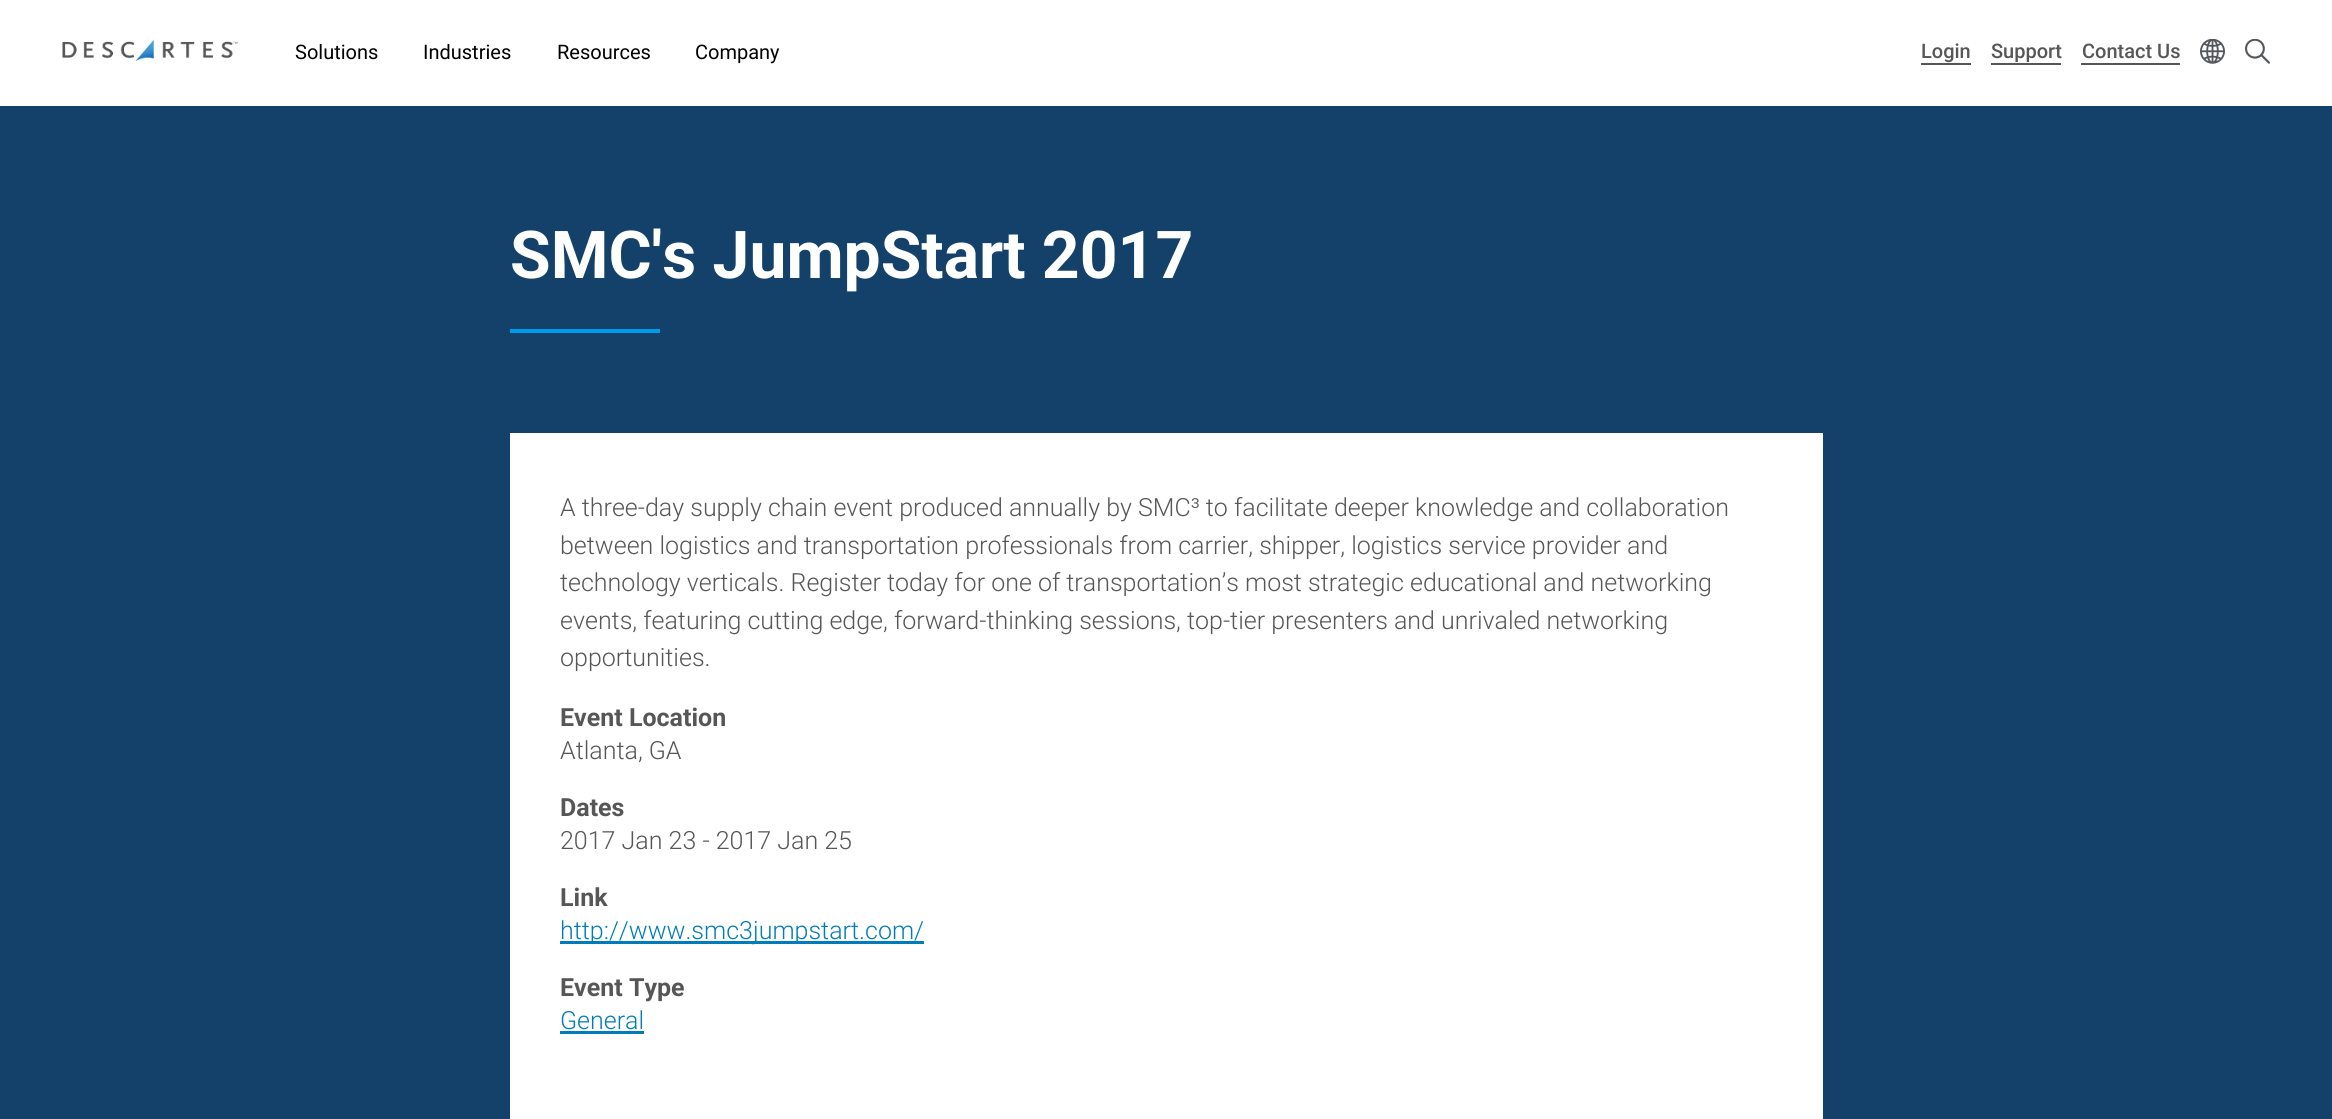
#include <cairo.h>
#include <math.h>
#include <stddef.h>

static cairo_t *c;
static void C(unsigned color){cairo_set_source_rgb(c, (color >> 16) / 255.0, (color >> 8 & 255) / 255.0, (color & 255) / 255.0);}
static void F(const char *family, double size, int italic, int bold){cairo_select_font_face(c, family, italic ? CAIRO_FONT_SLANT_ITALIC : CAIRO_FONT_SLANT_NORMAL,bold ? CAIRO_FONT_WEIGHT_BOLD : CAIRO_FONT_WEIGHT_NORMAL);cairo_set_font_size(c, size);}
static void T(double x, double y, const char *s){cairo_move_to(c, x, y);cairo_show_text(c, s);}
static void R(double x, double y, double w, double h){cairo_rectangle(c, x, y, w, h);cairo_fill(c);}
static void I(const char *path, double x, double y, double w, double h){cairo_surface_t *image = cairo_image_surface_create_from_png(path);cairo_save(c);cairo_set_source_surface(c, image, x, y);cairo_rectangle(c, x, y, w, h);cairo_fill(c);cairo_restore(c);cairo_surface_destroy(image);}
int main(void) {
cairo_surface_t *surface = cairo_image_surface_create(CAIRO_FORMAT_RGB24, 2332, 1119);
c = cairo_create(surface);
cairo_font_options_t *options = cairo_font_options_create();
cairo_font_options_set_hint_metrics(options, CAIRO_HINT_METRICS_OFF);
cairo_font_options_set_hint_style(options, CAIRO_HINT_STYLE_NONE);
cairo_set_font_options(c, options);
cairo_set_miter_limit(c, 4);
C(0x134169);
cairo_paint(c);
C(0xffffff);
R(0,0,2332,106);
I("1.png",62,39,176,22);
F("Roboto",20,0,0);
C(0x000000);
T(295,59,"Solutions");
T(423,59,"Industries");
T(557,59,"Resources");
T(695,59,"Company");
C(0x53565a);
R(1921,63,50,2);
F("Roboto Medium",20,0,0);
C(0x565656);
T(1921,58,"Login");
C(0x53565a);
R(1991,63,70,2);
C(0x565656);
T(1991,58,"Support");
C(0x53565a);
R(2081,63,99,2);
C(0x565656);
T(2082,58,"Contact Us");
I("2.png",2200,39,25,25);
I("3.png",2245,39,25,25);
F("Roboto",66,0,1);
C(0xffffff);
T(510,278,"SMC's JumpStart 2017");
C(0x009ceb);
R(510,329,150,4);
C(0xffffff);
R(510,433,1313,686);
F("Roboto Light",25,0,0);
C(0x565656);
T(560,516,"A three-day supply chain event produced annually by SMC³ to facilitate deeper knowledge and collaboration");
T(560,554,"between logistics and transportation professionals from carrier, shipper, logistics service provider and");
T(560,591,"technology verticals. Register today for one of transportation’s most strategic educational and networking");
T(560,629,"events, featuring cutting edge, forward-thinking sessions, top-tier presenters and unrivaled networking");
T(560,666,"opportunities.");
F("Roboto",25,0,1);
T(560,726,"Event Location");
F("Roboto Light",25,0,0);
T(560,759,"Atlanta, GA");
F("Roboto",25,0,1);
T(560,816,"Dates");
F("Roboto Light",25,0,0);
T(560,849,"2017 Jan 23 - 2017 Jan 25");
F("Roboto",25,0,1);
T(560,906,"Link");
C(0x007cba);
R(560,941,364,3);
F("Roboto Light",25,0,0);
T(560,939,"http://www.smc3jumpstart.com/");
F("Roboto",25,0,1);
C(0x565656);
T(560,996,"Event Type");
F("Roboto Light",25,0,0);
C(0x007cba);
T(560,1029,"General");
R(560,1031,84,3);
cairo_surface_write_to_png(surface, "o.png");
cairo_font_options_destroy(options);
cairo_destroy(c);
cairo_surface_destroy(surface);
return 0;
}
